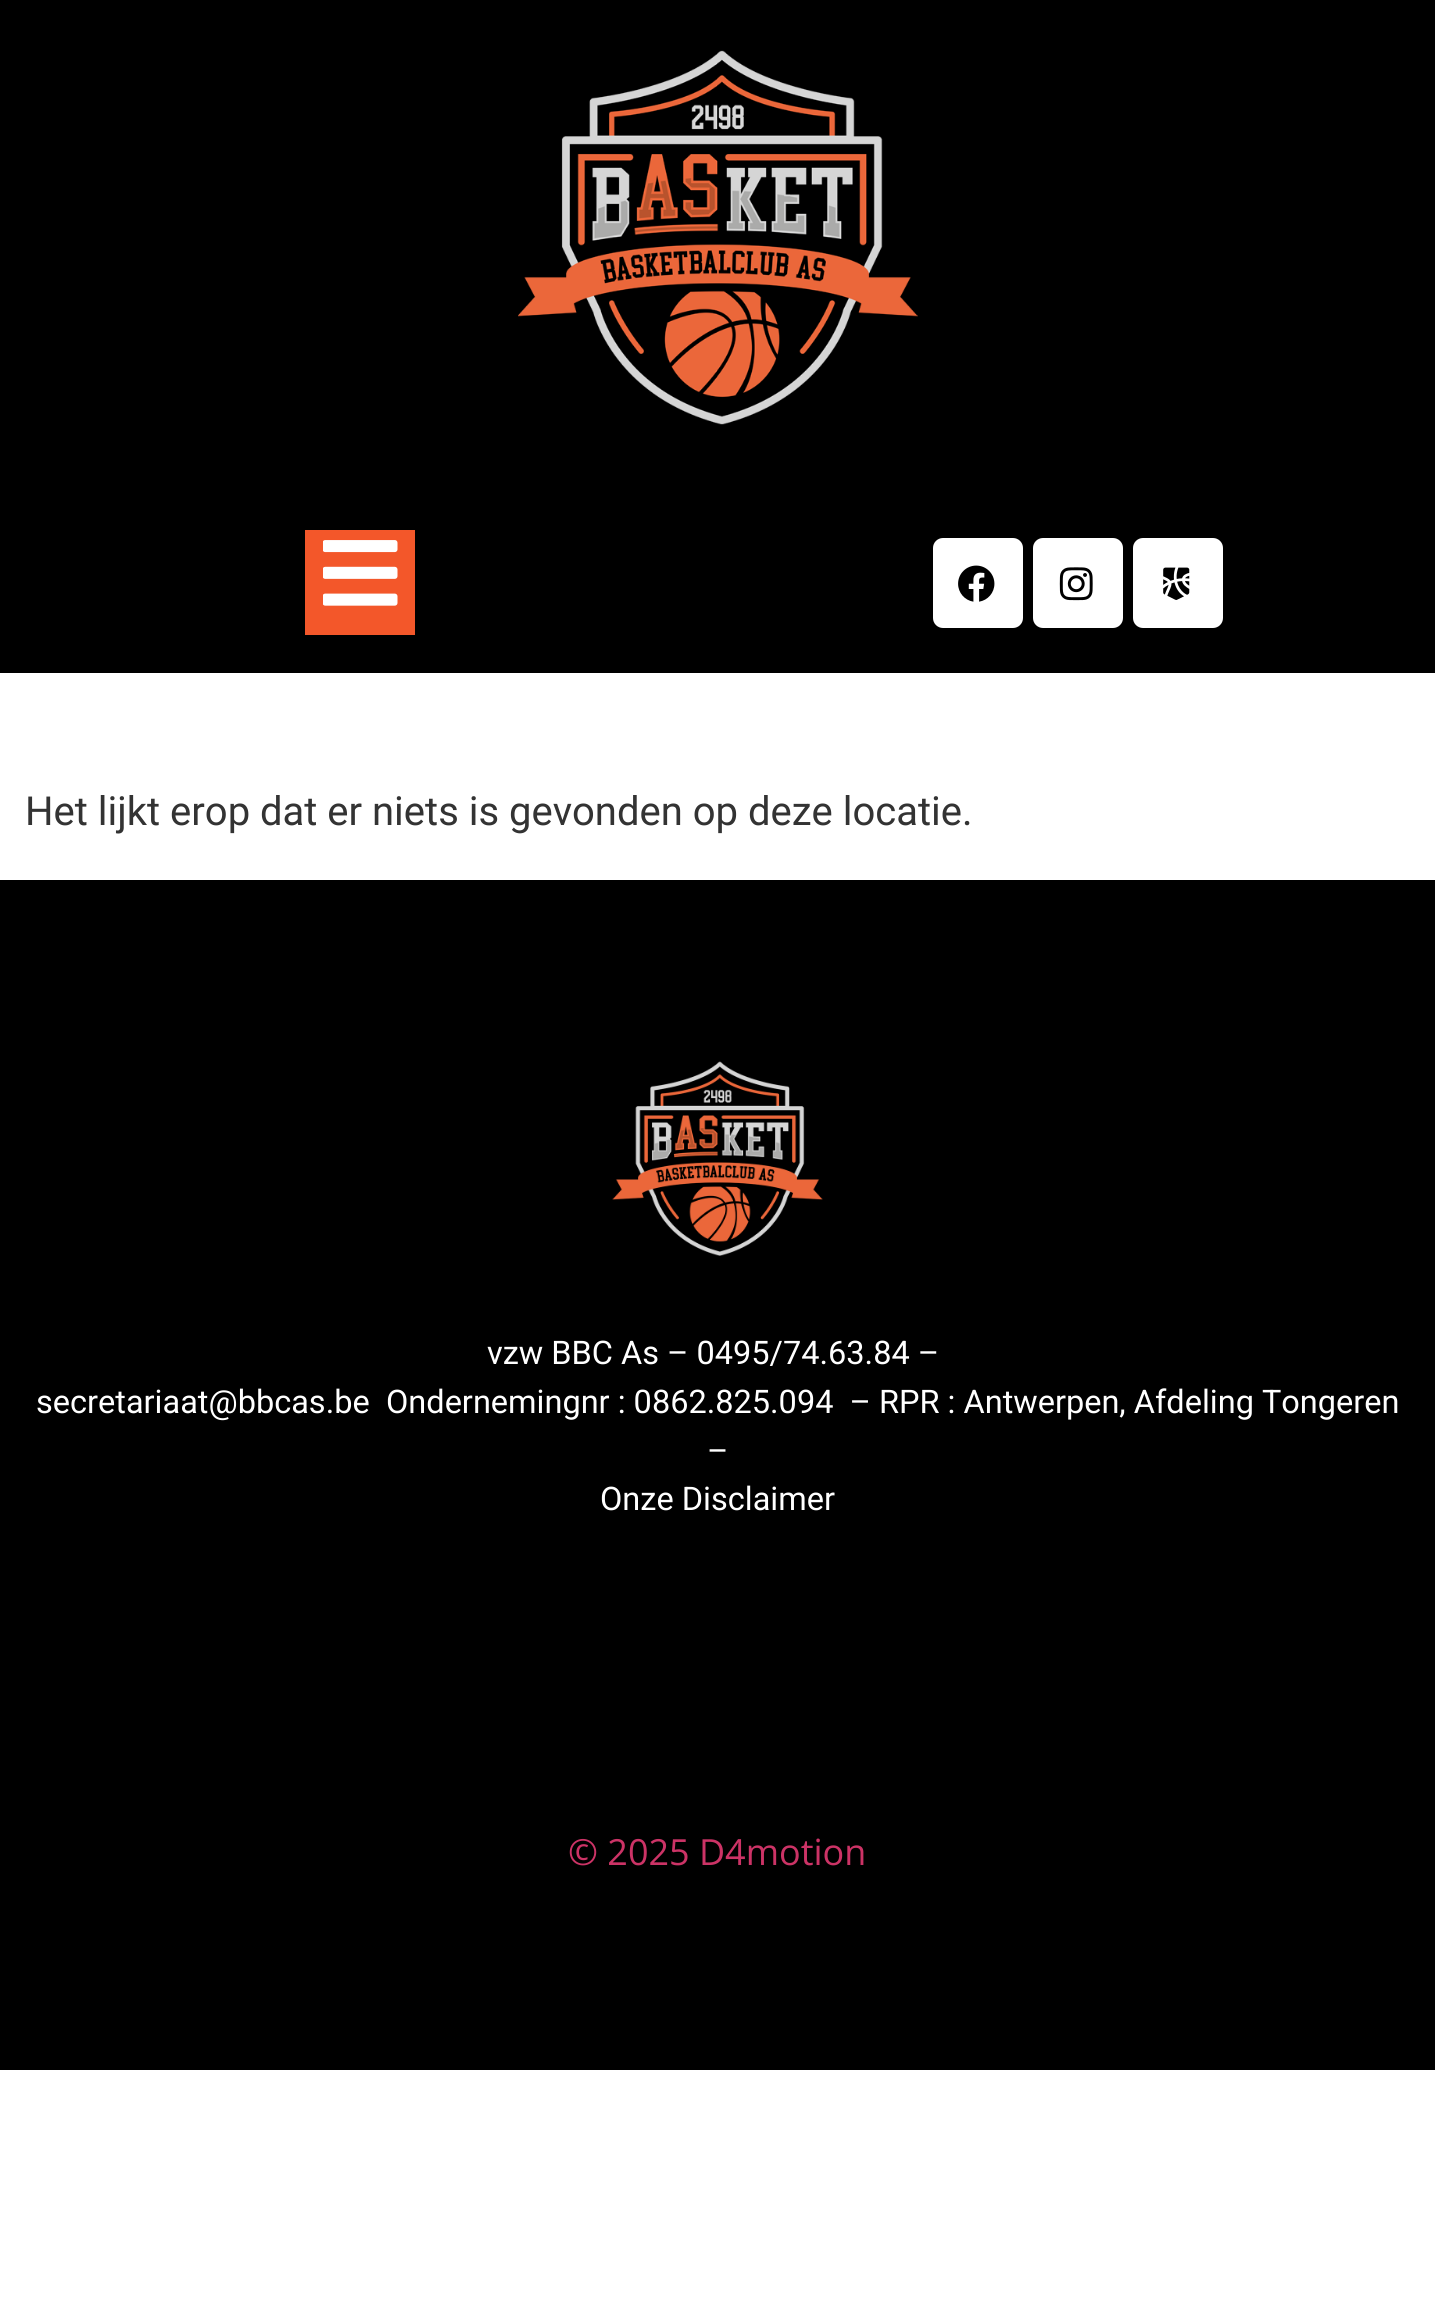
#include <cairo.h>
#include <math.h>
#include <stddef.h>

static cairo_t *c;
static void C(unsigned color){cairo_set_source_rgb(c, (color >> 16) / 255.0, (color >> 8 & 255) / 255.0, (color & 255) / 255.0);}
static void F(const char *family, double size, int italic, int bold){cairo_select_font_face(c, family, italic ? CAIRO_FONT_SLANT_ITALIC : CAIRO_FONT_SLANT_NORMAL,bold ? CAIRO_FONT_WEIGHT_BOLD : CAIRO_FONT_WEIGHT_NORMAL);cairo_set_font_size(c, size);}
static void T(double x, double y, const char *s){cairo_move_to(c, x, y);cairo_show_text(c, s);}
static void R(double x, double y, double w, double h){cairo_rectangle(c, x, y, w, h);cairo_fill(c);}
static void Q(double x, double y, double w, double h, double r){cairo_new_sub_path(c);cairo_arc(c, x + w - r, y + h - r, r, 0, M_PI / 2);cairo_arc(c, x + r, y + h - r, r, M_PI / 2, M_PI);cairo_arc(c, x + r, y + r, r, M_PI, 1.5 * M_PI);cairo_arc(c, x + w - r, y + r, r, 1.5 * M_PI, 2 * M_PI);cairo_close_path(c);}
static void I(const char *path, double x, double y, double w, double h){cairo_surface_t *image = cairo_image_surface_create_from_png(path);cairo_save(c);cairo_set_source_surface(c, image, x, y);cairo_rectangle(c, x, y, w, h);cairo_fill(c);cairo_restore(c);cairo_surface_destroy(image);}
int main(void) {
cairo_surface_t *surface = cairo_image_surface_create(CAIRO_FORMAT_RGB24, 1435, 2311);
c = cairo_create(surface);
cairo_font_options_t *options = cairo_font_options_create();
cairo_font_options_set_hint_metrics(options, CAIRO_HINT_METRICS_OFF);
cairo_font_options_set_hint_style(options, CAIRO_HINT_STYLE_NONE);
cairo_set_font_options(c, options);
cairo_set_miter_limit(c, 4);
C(0xffffff);
cairo_paint(c);
C(0x000000);
R(0,0,1435,673);
I("1.png",518,50,400,375);
C(0xf3572a);
R(305,530,110,105);
I("2.png",323,540,75,66);
C(0xffffff);
Q(933,538,90,90,10);
cairo_fill(c);
I("3.png",958,565,37,37);
Q(1033,538,90,90,10);
cairo_fill(c);
I("4.png",1059,567,34,34);
Q(1133,538,90,90,10);
cairo_fill(c);
I("5.png",1163,567,27,33);
F("Roboto",40,0,0);
C(0x333333);
T(25,825,"Het lijkt erop dat er niets is gevonden op deze locatie.");
C(0x000000);
R(0,880,1435,1190);
I("6.png",612,1061,211,195);
F("Roboto",32.5,0,0);
C(0xffffff);
T(487,1364,"vzw BBC As – 0495/74.63.84 –");
T(36,1413,"secretariaat@bbcas.be");
T(386,1413,"Ondernemingnr : 0862.825.094  – RPR : Antwerpen, Afdeling Tongeren");
T(707,1462,"–");
T(600,1510,"Onze Disclaimer");
F("Open Sans",36,0,0);
C(0xcc3366);
T(568,1865,"© 2025 D4motion");
cairo_surface_write_to_png(surface, "o.png");
cairo_font_options_destroy(options);
cairo_destroy(c);
cairo_surface_destroy(surface);
return 0;
}
